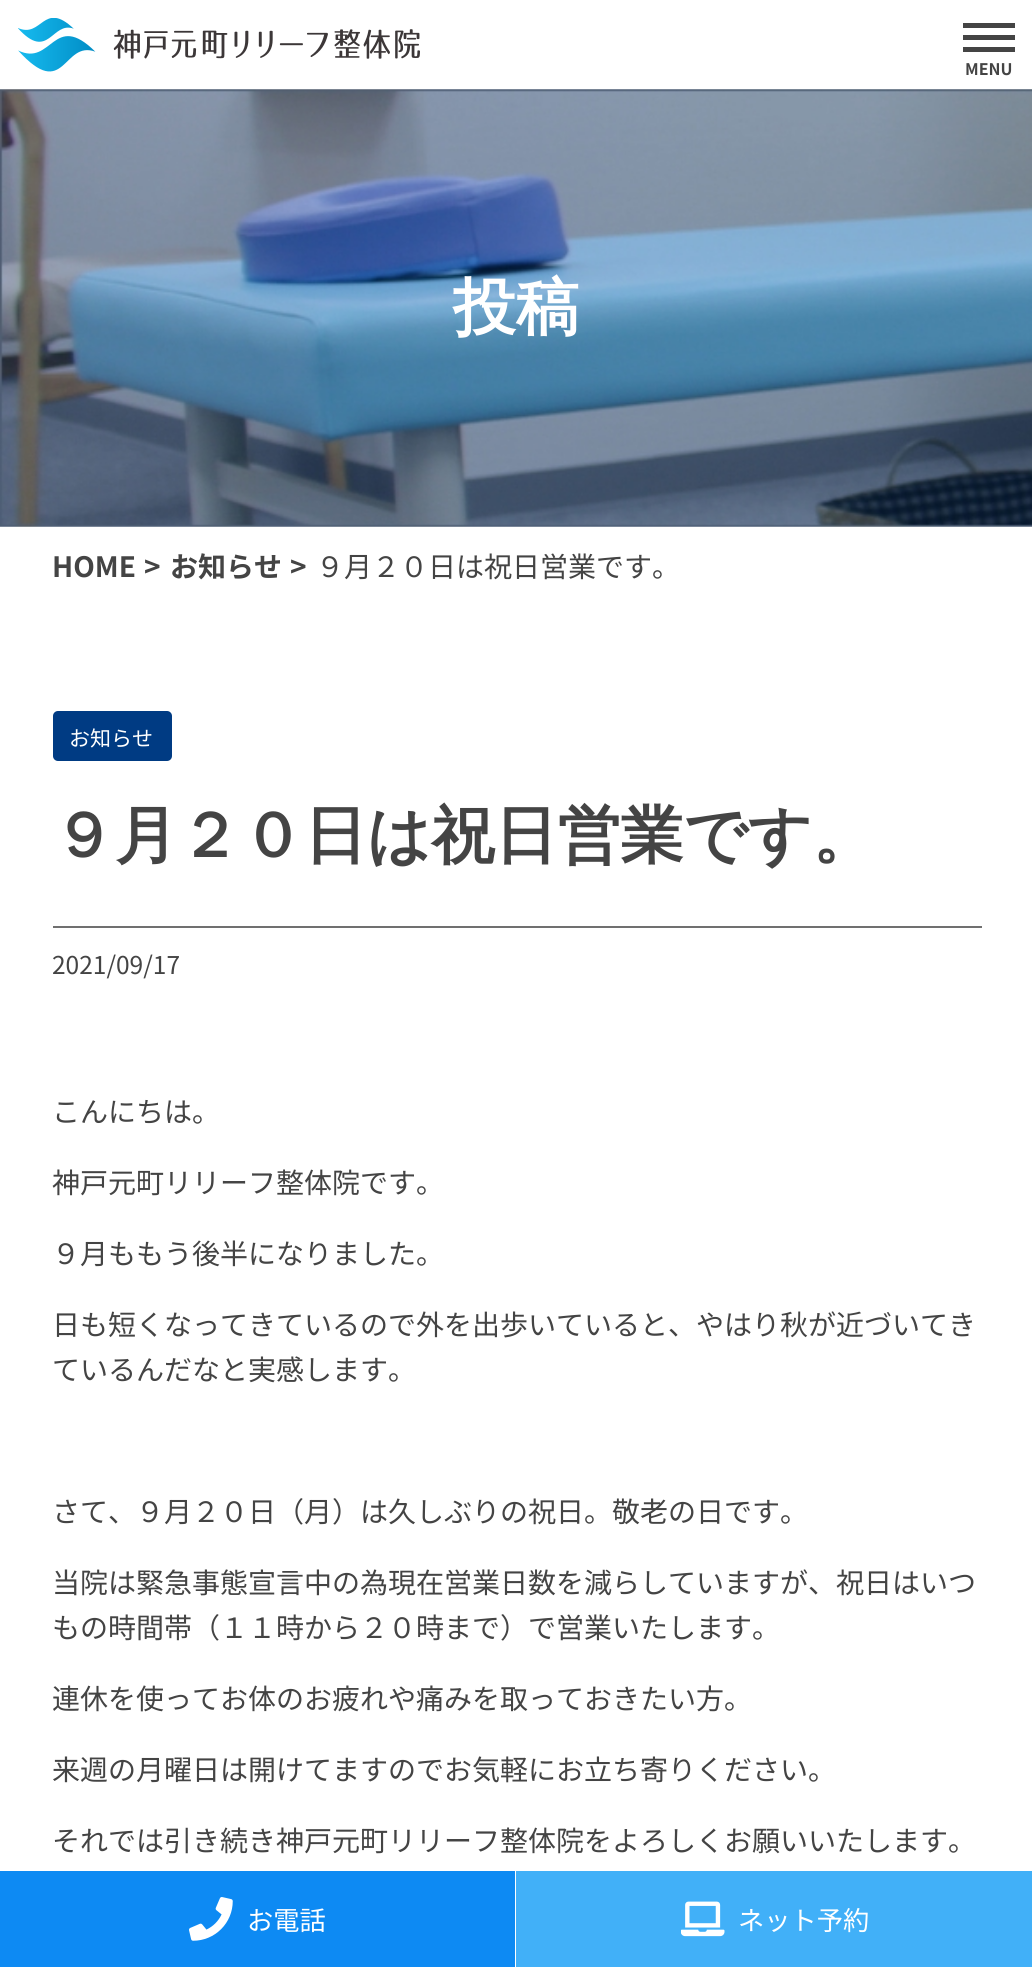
#include <cairo.h>
#include <math.h>
#include <stddef.h>

static cairo_t *c;
static void C(unsigned color){cairo_set_source_rgb(c, (color >> 16) / 255.0, (color >> 8 & 255) / 255.0, (color & 255) / 255.0);}
static void F(const char *family, double size, int italic, int bold){cairo_select_font_face(c, family, italic ? CAIRO_FONT_SLANT_ITALIC : CAIRO_FONT_SLANT_NORMAL,bold ? CAIRO_FONT_WEIGHT_BOLD : CAIRO_FONT_WEIGHT_NORMAL);cairo_set_font_size(c, size);}
static void T(double x, double y, const char *s){cairo_move_to(c, x, y);cairo_show_text(c, s);}
static void R(double x, double y, double w, double h){cairo_rectangle(c, x, y, w, h);cairo_fill(c);}
static void Q(double x, double y, double w, double h, double r){cairo_new_sub_path(c);cairo_arc(c, x + w - r, y + h - r, r, 0, M_PI / 2);cairo_arc(c, x + r, y + h - r, r, M_PI / 2, M_PI);cairo_arc(c, x + r, y + r, r, M_PI, 1.5 * M_PI);cairo_arc(c, x + w - r, y + r, r, 1.5 * M_PI, 2 * M_PI);cairo_close_path(c);}
static void I(const char *path, double x, double y, double w, double h){cairo_surface_t *image = cairo_image_surface_create_from_png(path);cairo_save(c);cairo_set_source_surface(c, image, x, y);cairo_rectangle(c, x, y, w, h);cairo_fill(c);cairo_restore(c);cairo_surface_destroy(image);}
int main(void) {
cairo_surface_t *surface = cairo_image_surface_create(CAIRO_FORMAT_RGB24, 1032, 1967);
c = cairo_create(surface);
cairo_font_options_t *options = cairo_font_options_create();
cairo_font_options_set_hint_metrics(options, CAIRO_HINT_METRICS_OFF);
cairo_font_options_set_hint_style(options, CAIRO_HINT_STYLE_NONE);
cairo_set_font_options(c, options);
cairo_set_miter_limit(c, 4);
C(0xffffff);
cairo_paint(c);
I("1.png",18,18,402,54);
C(0x444444);
R(963,35,52,5);
R(963,23,52,5);
R(963,47,52,5);
F("Noto Sans JP",16,0,1);
T(965,75,"MENU");
I("2.png",0,89,1032,438);
F("WenQuanYi Zen Hei",63,0,1);
C(0xffffff);
T(453,329,"投稿");
F("Noto Sans JP",28,0,1);
C(0x444444);
T(52,577,"HOME");
T(144,577,">");
T(170,577,"お知らせ");
T(290,577,">");
F("Noto Sans JP",28,0,0);
T(316,577,"９月２０日は祝日営業です。");
C(0x003b83);
Q(53,711,119,50,5);
cairo_fill(c);
F("Noto Sans JP",21,0,0);
C(0xffffff);
T(69,746,"お知らせ");
C(0x707070);
R(53,926,929,2);
F("WenQuanYi Zen Hei",63,0,1);
C(0x444444);
T(52,857,"９月２０日は祝日営業です。");
F("Noto Sans JP",24.5,0,0);
T(52,974,"2021/09/17");
F("Noto Sans JP",28,0,0);
T(52,1122,"こんにちは。");
T(52,1193,"神戸元町リリーフ整体院です。");
T(52,1264,"９月ももう後半になりました。");
T(52,1335,"日も短くなってきているので外を出歩いていると、やはり秋が近づいてき");
T(52,1380,"ているんだなと実感します。");
T(52,1522,"さて、９月２０日（月）は久しぶりの祝日。敬老の日です。");
T(52,1593,"当院は緊急事態宣言中の為現在営業日数を減らしていますが、祝日はいつ");
T(52,1638,"もの時間帯（１１時から２０時まで）で営業いたします。");
T(52,1709,"連休を使ってお体のお疲れや痛みを取っておきたい方。");
T(52,1780,"来週の月曜日は開けてますのでお気軽にお立ち寄りください。");
T(52,1851,"それでは引き続き神戸元町リリーフ整体院をよろしくお願いいたします。");
C(0x0d8af3);
R(0,1871,515,96);
I("3.png",189,1897,44,44);
F("Noto Sans JP",26.25,0,0);
C(0xffffff);
T(247,1930,"お電話");
C(0x41b0f8);
R(516,1871,516,96);
I("4.png",681,1901,44,36);
C(0xffffff);
T(738,1930,"ネット予約");
cairo_surface_write_to_png(surface, "o.png");
cairo_font_options_destroy(options);
cairo_destroy(c);
cairo_surface_destroy(surface);
return 0;
}
